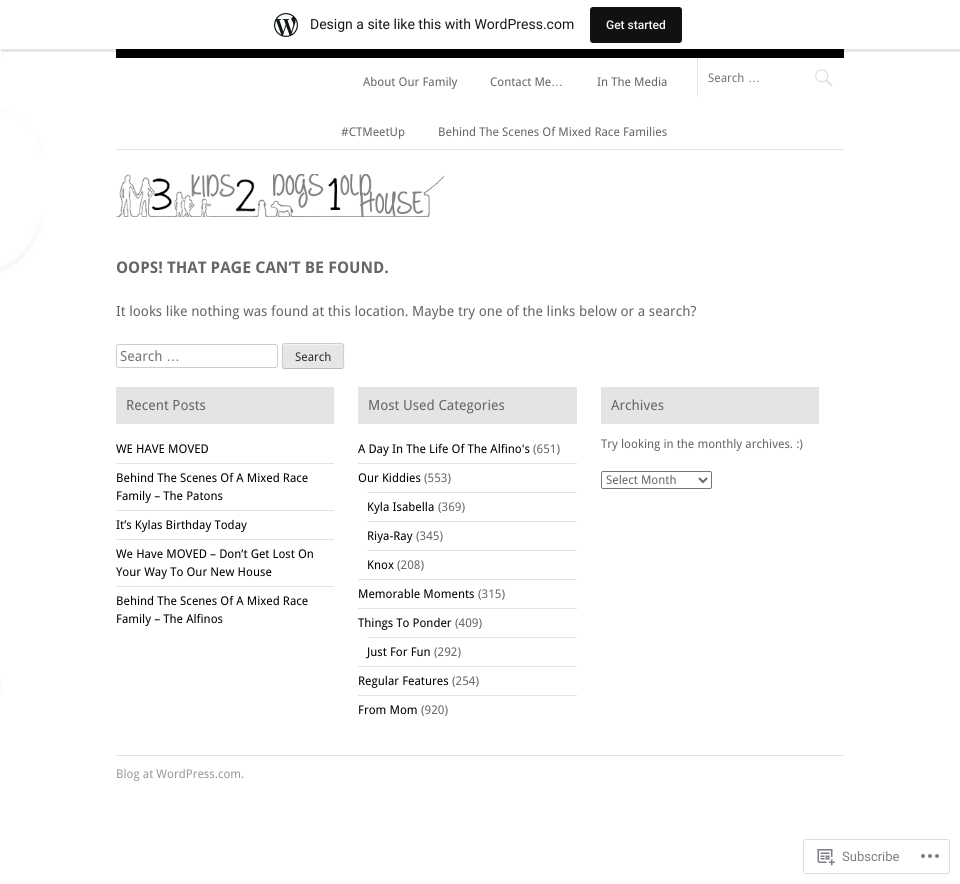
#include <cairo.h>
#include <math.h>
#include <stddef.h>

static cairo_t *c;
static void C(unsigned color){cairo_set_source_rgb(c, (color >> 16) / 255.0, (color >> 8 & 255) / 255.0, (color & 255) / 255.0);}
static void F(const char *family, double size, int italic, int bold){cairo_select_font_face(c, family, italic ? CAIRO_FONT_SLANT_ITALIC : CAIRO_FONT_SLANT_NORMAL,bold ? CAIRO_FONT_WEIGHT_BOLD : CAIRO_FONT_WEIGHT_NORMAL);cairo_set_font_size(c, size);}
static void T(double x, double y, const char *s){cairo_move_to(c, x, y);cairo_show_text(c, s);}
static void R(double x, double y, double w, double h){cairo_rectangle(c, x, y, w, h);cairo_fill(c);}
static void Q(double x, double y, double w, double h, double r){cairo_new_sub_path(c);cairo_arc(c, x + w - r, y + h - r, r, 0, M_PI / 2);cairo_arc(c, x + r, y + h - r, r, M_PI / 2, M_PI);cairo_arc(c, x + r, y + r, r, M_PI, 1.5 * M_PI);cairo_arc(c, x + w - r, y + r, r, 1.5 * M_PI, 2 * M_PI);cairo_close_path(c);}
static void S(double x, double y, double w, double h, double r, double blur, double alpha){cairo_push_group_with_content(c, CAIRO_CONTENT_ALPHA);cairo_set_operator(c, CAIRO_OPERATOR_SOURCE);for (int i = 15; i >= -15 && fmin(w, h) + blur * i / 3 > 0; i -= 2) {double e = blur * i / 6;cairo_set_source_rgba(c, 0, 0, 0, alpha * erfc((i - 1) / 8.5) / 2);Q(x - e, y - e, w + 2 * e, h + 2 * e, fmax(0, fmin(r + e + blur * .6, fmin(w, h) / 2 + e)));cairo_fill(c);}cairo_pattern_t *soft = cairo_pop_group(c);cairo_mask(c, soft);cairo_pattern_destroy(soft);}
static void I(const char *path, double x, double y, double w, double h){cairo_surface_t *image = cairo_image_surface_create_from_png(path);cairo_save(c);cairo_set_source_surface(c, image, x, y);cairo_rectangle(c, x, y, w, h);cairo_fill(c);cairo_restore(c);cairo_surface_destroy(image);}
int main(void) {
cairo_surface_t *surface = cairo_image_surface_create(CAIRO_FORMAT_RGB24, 960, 884);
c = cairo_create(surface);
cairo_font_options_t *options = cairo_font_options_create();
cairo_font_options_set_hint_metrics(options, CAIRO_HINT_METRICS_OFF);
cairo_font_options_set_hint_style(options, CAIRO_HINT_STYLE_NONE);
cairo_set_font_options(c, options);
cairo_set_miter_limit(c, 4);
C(0xffffff);
cairo_paint(c);
I("1.png",0,49,43,643);
C(0x000000);
R(116,49,728,9);
C(0x000000);
S(0,1,960,49,0,1,.05);
cairo_set_source_rgba(c,0,0,0,0.08);
cairo_new_path(c);
cairo_move_to(c,1,49);
cairo_line_to(c,1,52);
cairo_line_to(c,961,52);
cairo_line_to(c,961,3);
cairo_line_to(c,960,3);
cairo_line_to(c,960,49);
cairo_close_path(c);
cairo_fill(c);
C(0xffffff);
R(0,0,960,49);
I("2.png",274,13,24,24);
F("Roboto",14,0,0);
C(0x171717);
T(310,29,"Design a site like this with WordPress.com");
C(0x111111);
Q(590,7,92,36,3);
cairo_fill(c);
F("Roboto Medium",12,0,0);
C(0xf6f7f7);
T(606,29,"Get started");
C(0xe4e4e2);
R(116,149,728,1);
F("Droid Sans",12,0,0);
C(0x666666);
T(363,86,"About Our Family");
T(490,86,"Contact Me");
F("Liberation Sans",12,0,0);
T(551,86,"…");
F("Droid Sans",12,0,0);
T(597,86,"In The Media");
T(341,136,"#CTMeetUp");
T(438,136,"Behind The Scenes Of Mixed Race Families");
C(0xe4e4e2);
R(697,58,1,39);
C(0x757575);
T(708,82,"Search");
F("Liberation Sans",12,0,0);
T(748,82,"…");
I("3.png",815,69,18,18);
I("4.png",116,174,328,43);
F("Droid Sans",16,0,1);
C(0x666666);
T(116,273,"OOPS! THAT PAGE CAN’T BE FOUND.");
F("Droid Sans",14,0,0);
T(116,316,"It looks like nothing was found at this location. Maybe try one of the links below or a search?");
Q(116.5,344.5,161,23,2.5);
C(0xcccccc);
cairo_set_line_width(c,1);
cairo_stroke(c);
C(0x757575);
T(120,361,"Search");
F("Liberation Sans",14,0,0);
T(166,361,"…");
C(0xe6e6e6);
Q(282,343,62,26,3);
cairo_fill(c);
C(0xf3f3f3);
cairo_new_path(c);
cairo_move_to(c,285,345);
cairo_line_to(c,341,345);
cairo_curve_to(c,342,345,343,346,343,347);
cairo_curve_to(c,343,341,335,344,332,344);
cairo_line_to(c,294,344);
cairo_curve_to(c,291,344,283,341,283,347);
cairo_curve_to(c,283,346,284,345,285,345);
cairo_close_path(c);
cairo_fill(c);
cairo_new_path(c);
cairo_move_to(c,343,368);
cairo_line_to(c,341,368.5);
cairo_line_to(c,285,368.5);
cairo_line_to(c,283,368);
C(0xbbbbbb);
cairo_stroke(c);
cairo_new_path(c);
cairo_move_to(c,283,368);
cairo_curve_to(c,281.5,366,282.5,358.5,282.5,356);
cairo_curve_to(c,282.5,341.5,280,343.5,294.5,343.5);
cairo_line_to(c,331.5,343.5);
cairo_curve_to(c,346,343.5,343.5,341.5,343.5,356);
cairo_curve_to(c,343.5,358.5,344.5,366,343,368);
C(0xcccccc);
cairo_stroke(c);
F("Droid Sans",12,0,0);
C(0x2e2e2e);
T(295,361,"Search");
C(0xe4e4e2);
R(116,387,218,37);
F("Droid Sans",14,0,0);
C(0x666666);
T(126,410,"Recent Posts");
F("Droid Sans",12,0,0);
C(0x000000);
T(116,453,"WE HAVE MOVED");
C(0xe4e4e2);
R(116,463,218,1);
C(0x000000);
T(116,482,"Behind The Scenes Of A Mixed Race");
T(116,500,"Family – The Patons");
C(0xe4e4e2);
R(116,510,218,1);
C(0x000000);
T(116,529,"It’s Kylas Birthday Today");
C(0xe4e4e2);
R(116,539,218,1);
C(0x000000);
T(116,558,"We Have MOVED – Don’t Get Lost On");
T(116,576,"Your Way To Our New House");
C(0xe4e4e2);
R(116,586,218,1);
C(0x000000);
T(116,605,"Behind The Scenes Of A Mixed Race");
T(116,623,"Family – The Alfinos");
C(0xe4e4e2);
R(358,387,219,37);
F("Droid Sans",14,0,0);
C(0x666666);
T(368,410,"Most Used Categories");
F("Droid Sans",12,0,0);
C(0x000000);
T(358,453,"A Day In The Life Of The Alfino's");
C(0x666666);
T(533,453,"(651)");
C(0xe4e4e2);
R(358,463,219,1);
C(0x000000);
T(358,482,"Our Kiddies");
C(0x666666);
T(424,482,"(553)");
C(0xe4e4e2);
R(367,492,210,1);
C(0x000000);
T(367,511,"Kyla Isabella");
C(0x666666);
T(438,511,"(369)");
C(0xe4e4e2);
R(367,521,210,1);
C(0x000000);
T(367,540,"Riya-Ray");
C(0x666666);
T(416,540,"(345)");
C(0xe4e4e2);
R(367,550,210,1);
C(0x000000);
T(367,569,"Knox");
C(0x666666);
T(397,569,"(208)");
C(0xe4e4e2);
R(358,579,219,1);
C(0x000000);
T(358,598,"Memorable Moments");
C(0x666666);
T(478,598,"(315)");
C(0xe4e4e2);
R(358,608,219,1);
C(0x000000);
T(358,627,"Things To Ponder");
C(0x666666);
T(455,627,"(409)");
C(0xe4e4e2);
R(367,637,210,1);
C(0x000000);
T(367,656,"Just For Fun");
C(0x666666);
T(434,656,"(292)");
C(0xe4e4e2);
R(358,666,219,1);
C(0x000000);
T(358,685,"Regular Features");
C(0x666666);
T(452,685,"(254)");
C(0xe4e4e2);
R(358,695,219,1);
C(0x000000);
T(358,714,"From Mom");
C(0x666666);
T(421,714,"(920)");
C(0xe4e4e2);
R(601,387,218,37);
F("Droid Sans",14,0,0);
C(0x666666);
T(611,410,"Archives");
F("Droid Sans",12,0,0);
T(601,448,"Try looking in the monthly archives. :)");
Q(601.5,471.5,110,17,1.5);
C(0x767676);
cairo_stroke(c);
cairo_new_path(c);
cairo_move_to(c,699,478);
cairo_line_to(c,703,482);
cairo_line_to(c,707,478);
C(0x666666);
cairo_set_line_width(c,2);
cairo_stroke(c);
T(606,484,"Select Month");
C(0xe4e4e2);
R(116,755,728,1);
C(0x999999);
T(116,778,"Blog at WordPress.com.");
Q(803.5,839.5,146,34,2.5);
C(0xdddddf);
cairo_set_line_width(c,1);
cairo_stroke(c);
I("5.png",817,849,18,17);
F("Roboto",13,0,0);
C(0x7b7f85);
T(842,861,"Subscribe");
I("6.png",921,854,18,4);
cairo_surface_write_to_png(surface, "o.png");
cairo_font_options_destroy(options);
cairo_destroy(c);
cairo_surface_destroy(surface);
return 0;
}
